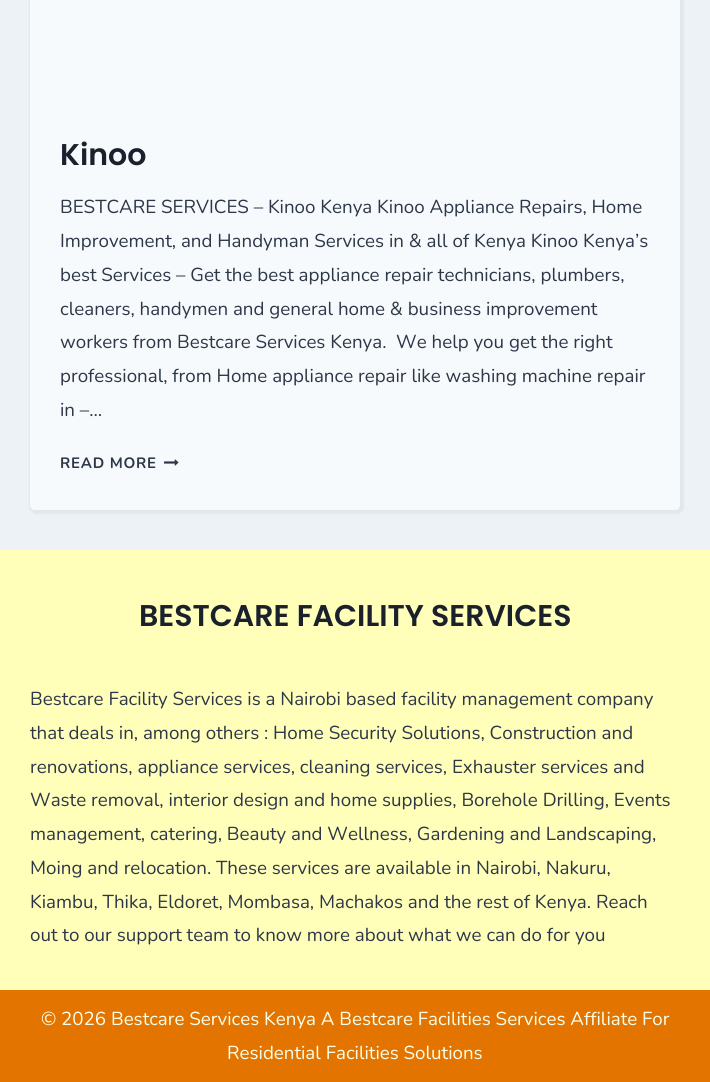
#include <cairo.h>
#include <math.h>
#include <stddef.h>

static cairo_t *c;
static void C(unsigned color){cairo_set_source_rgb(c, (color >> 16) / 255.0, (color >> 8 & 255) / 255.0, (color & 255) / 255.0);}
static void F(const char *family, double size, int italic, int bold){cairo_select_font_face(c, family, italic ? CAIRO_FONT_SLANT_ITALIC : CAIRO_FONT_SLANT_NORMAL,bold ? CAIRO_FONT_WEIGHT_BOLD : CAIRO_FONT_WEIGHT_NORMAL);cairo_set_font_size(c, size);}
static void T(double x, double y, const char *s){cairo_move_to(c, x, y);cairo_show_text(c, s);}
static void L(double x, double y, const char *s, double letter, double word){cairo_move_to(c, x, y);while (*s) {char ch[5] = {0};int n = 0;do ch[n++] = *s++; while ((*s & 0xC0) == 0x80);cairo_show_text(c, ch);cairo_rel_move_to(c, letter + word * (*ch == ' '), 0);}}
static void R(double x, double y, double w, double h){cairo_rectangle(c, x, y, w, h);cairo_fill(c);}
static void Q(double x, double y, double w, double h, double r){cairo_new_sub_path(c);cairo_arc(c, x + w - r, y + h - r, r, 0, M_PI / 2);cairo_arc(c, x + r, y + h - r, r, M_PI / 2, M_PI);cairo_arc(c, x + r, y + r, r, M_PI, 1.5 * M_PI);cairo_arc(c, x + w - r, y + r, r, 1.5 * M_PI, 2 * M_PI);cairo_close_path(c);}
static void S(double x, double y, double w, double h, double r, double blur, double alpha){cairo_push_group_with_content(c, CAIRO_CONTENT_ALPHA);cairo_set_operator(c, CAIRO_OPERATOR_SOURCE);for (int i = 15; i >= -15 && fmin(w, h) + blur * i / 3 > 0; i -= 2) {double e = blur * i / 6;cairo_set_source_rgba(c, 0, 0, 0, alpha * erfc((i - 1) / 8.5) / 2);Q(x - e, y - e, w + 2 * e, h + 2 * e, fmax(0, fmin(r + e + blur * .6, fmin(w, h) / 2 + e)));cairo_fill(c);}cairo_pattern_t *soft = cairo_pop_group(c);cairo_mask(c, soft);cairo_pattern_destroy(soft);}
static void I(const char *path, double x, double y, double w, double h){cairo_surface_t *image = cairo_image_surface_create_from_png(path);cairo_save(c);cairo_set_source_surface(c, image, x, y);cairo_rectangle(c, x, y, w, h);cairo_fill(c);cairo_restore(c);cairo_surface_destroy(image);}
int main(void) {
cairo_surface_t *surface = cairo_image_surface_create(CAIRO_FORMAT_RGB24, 710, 1082);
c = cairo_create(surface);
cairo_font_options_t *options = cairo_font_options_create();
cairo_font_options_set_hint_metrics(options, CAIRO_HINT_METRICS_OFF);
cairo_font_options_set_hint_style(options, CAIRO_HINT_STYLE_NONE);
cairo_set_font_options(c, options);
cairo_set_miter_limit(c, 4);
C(0xedf2f7);
cairo_paint(c);
C(0x000000);
S(29,-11,655,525,8,1,.05);
C(0xf7fafc);
Q(30,-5,650,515,5);
cairo_fill(c);
F("Poppins SemiBold",30,0,0);
C(0x1a202c);
T(60,165,"Kinoo");
F("Nunito",18.75,0,0);
C(0x2d3748);
T(60,213,"BESTCARE SERVICES – Kinoo Kenya Kinoo Appliance Repairs, Home");
T(60,247,"Improvement, and Handyman Services in & all of Kenya Kinoo Kenya’s");
T(60,281,"best Services – Get the best appliance repair technicians, plumbers,");
T(60,315,"cleaners, handymen and general home & business improvement");
T(60,348,"workers from Bestcare Services Kenya.  We help you get the right");
T(60,382,"professional, from Home appliance repair like washing machine repair");
T(60,416,"in –…");
F("Nunito",15,0,1);
L(60,468,"READ MORE",.75,0);
I("1.png",164,459,15,7);
C(0xffffba);
R(0,550,710,440);
F("Poppins SemiBold",30,0,0);
C(0x1a202c);
T(139,626,"BESTCARE FACILITY SERVICES");
F("Nunito",18.75,0,0);
C(0x2d3748);
T(30,705,"Bestcare Facility Services is a Nairobi based facility management company");
T(30,739,"that deals in, among others : Home Security Solutions, Construction and");
T(30,773,"renovations, appliance services, cleaning services, Exhauster services and");
T(30,806,"Waste removal, interior design and home supplies, Borehole Drilling, Events");
T(30,840,"management, catering, Beauty and Wellness, Gardening and Landscaping,");
T(30,874,"Moing and relocation. These services are available in Nairobi, Nakuru,");
T(30,908,"Kiambu, Thika, Eldoret, Mombasa, Machakos and the rest of Kenya. Reach");
T(30,941,"out to our support team to know more about what we can do for you");
C(0xe37400);
R(0,990,710,92);
C(0xfaffeb);
T(41,1025,"© 2026 Bestcare Services Kenya A Bestcare Facilities Services Affiliate For");
T(227,1059,"Residential Facilities Solutions");
cairo_surface_write_to_png(surface, "o.png");
cairo_font_options_destroy(options);
cairo_destroy(c);
cairo_surface_destroy(surface);
return 0;
}
